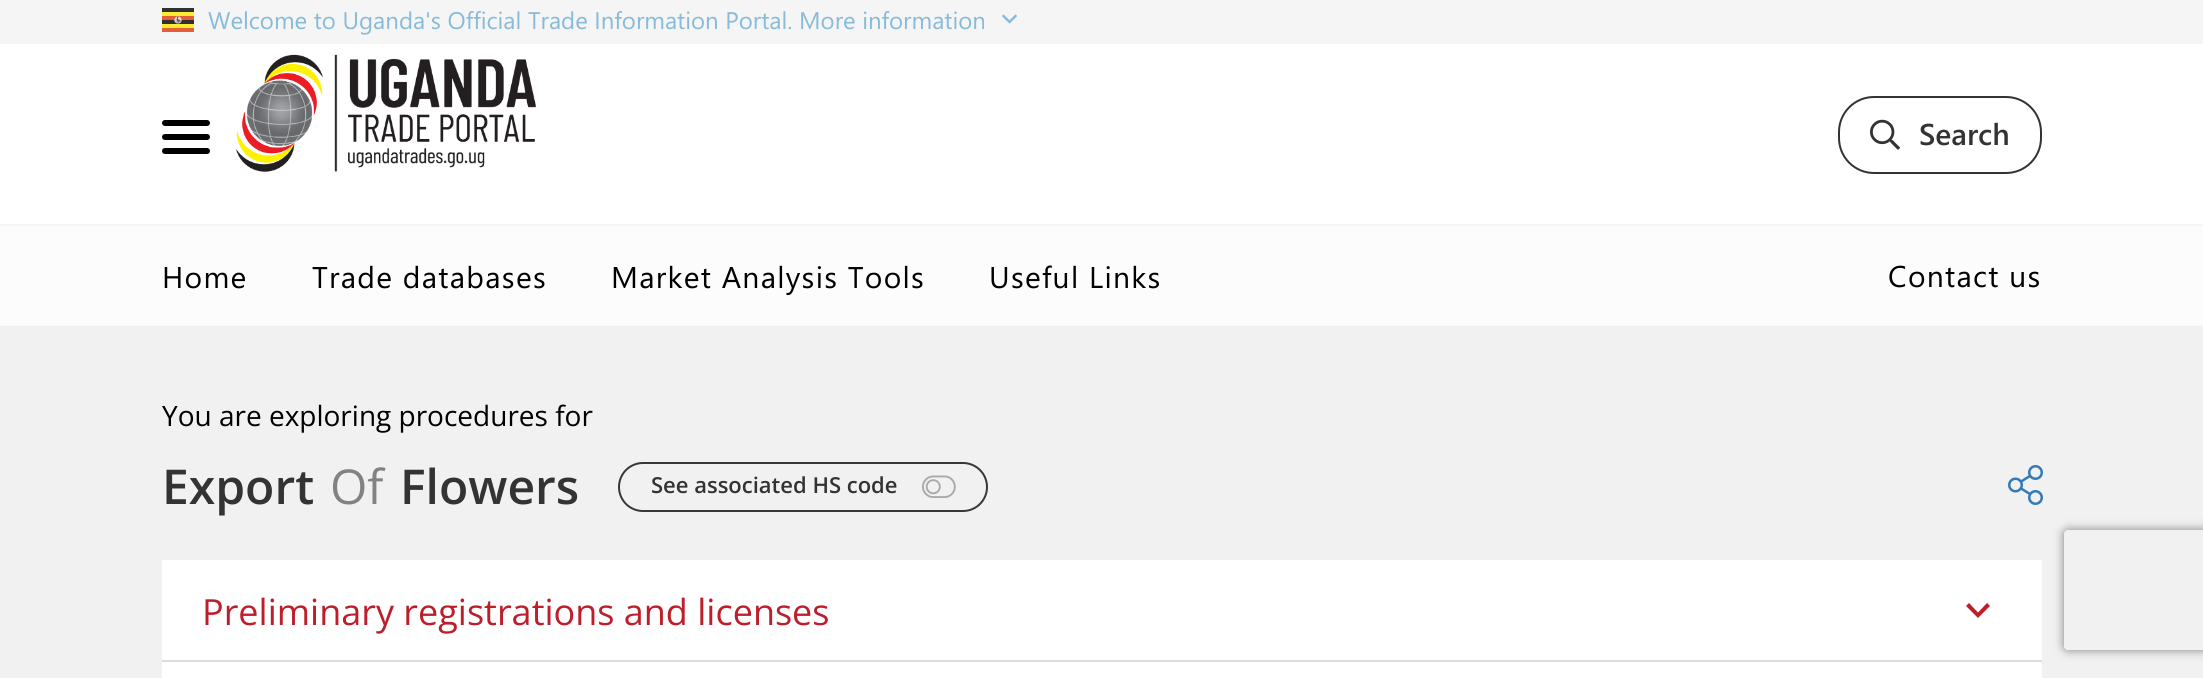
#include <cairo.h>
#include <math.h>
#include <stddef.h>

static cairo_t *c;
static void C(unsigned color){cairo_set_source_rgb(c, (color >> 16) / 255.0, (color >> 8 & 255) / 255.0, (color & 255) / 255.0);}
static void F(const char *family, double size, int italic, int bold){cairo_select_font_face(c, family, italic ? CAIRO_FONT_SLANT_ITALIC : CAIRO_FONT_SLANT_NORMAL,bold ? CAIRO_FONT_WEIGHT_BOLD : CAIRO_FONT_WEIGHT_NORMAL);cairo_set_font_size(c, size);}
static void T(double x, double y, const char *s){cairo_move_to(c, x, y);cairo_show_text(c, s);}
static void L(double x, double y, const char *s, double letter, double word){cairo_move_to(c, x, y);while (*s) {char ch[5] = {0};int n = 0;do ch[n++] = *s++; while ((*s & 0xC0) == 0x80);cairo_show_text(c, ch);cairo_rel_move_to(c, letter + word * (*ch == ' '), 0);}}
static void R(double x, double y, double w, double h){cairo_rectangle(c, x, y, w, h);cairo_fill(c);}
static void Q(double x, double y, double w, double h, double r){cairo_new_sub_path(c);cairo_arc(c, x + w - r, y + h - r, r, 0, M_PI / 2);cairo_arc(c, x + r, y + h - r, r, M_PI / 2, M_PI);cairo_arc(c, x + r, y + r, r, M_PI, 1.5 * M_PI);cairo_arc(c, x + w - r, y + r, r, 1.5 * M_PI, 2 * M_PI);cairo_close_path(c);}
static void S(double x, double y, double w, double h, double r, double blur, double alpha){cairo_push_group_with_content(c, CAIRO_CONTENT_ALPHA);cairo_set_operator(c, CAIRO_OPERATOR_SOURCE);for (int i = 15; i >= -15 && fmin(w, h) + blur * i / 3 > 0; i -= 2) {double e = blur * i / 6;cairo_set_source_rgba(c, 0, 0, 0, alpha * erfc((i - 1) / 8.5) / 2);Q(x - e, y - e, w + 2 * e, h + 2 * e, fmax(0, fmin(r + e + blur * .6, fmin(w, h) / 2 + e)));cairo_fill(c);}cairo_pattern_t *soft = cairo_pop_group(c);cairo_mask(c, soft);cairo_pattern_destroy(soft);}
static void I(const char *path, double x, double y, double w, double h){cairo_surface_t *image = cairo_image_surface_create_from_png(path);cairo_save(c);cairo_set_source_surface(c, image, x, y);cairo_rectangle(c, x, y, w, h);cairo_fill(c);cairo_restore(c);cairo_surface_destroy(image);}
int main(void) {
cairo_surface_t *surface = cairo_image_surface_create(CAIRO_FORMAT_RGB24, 2203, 678);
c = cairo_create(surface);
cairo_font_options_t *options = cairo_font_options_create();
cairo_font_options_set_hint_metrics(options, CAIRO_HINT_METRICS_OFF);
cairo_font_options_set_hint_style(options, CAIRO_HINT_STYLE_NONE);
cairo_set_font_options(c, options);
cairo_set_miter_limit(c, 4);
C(0xf1f1f1);
cairo_paint(c);
C(0xf5f5f5);
R(0,0,2203,44);
I("1.png",162,8,32,24);
F("Segoe UI",24,0,0);
C(0x88bbd9);
T(208,29,"Welcome to Uganda's Official Trade Information Portal. More information");
I("2.png",1002,14,15,10);
C(0xffffff);
R(0,44,2203,180);
C(0x000000);
Q(162,148,48,6,3);
cairo_fill(c);
Q(162,120,48,6,3);
cairo_fill(c);
Q(162,134,48,6,3);
cairo_fill(c);
I("3.png",236,54,300,118);
Q(1839,97,202,76,35);
C(0x333333);
cairo_stroke(c);
I("4.png",1870,119,30,31);
F("Segoe UI SemiBold",30,0,0);
T(1919,145,"Search");
C(0xfcfcfc);
R(0,226,2203,100);
C(0xf4f4f4);
R(0,224,2203,2);
F("Segoe UI",30,0,0);
C(0x000000);
L(162,288,"Home",1.3,0);
L(312,288,"Trade databases",1.3,0);
L(611,288,"Market Analysis Tools",1.3,0);
L(989,288,"Useful Links",1.3,0);
L(1888,287,"Contact us",1.3,0);
F("Open Sans",28,0,0);
T(162,426,"You are exploring procedures for");
F("Open Sans SemiBold",48,0,0);
C(0x333333);
T(162,504,"Export");
F("Open Sans",48,0,0);
C(0x828282);
T(330,504,"Of");
F("Open Sans SemiBold",48,0,0);
C(0x333333);
T(400,504,"Flowers");
Q(619,463,368,48,24);
C(0x383838);
cairo_stroke(c);
F("Open Sans SemiBold",22,0,0);
C(0x333333);
T(651,493,"See associated HS code");
I("5.png",922,475,34,23);
I("6.png",2008,465,35,40);
C(0xffffff);
R(162,662,1880,16);
R(162,560,1880,100);
C(0xdcdcdc);
R(162,660,1880,2);
F("Open Sans",36,0,0);
C(0xbd1e2c);
T(202,625,"Preliminary registrations and licenses");
cairo_new_path(c);
cairo_move_to(c,1987,603);
cairo_line_to(c,1990,606);
cairo_line_to(c,1978,618);
cairo_line_to(c,1966,606);
cairo_line_to(c,1969,603);
cairo_line_to(c,1978,612.5);
cairo_close_path(c);
cairo_fill(c);
cairo_save(c);
cairo_set_fill_rule(c,CAIRO_FILL_RULE_EVEN_ODD);
cairo_new_path(c);
cairo_move_to(c,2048,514);
cairo_line_to(c,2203,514);
cairo_line_to(c,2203,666);
cairo_line_to(c,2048,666);
cairo_close_path(c);
cairo_move_to(c,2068,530);
cairo_line_to(c,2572,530);
cairo_curve_to(c,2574,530,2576,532,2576,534);
cairo_line_to(c,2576,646);
cairo_curve_to(c,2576,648,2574,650,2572,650);
cairo_line_to(c,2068,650);
cairo_curve_to(c,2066,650,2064,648,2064,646);
cairo_line_to(c,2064,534);
cairo_curve_to(c,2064,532,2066,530,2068,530);
cairo_close_path(c);
cairo_clip(c);
C(0x808080);
S(2064,530,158,120,4,5,1);
cairo_restore(c);
cairo_surface_write_to_png(surface, "o.png");
cairo_font_options_destroy(options);
cairo_destroy(c);
cairo_surface_destroy(surface);
return 0;
}
